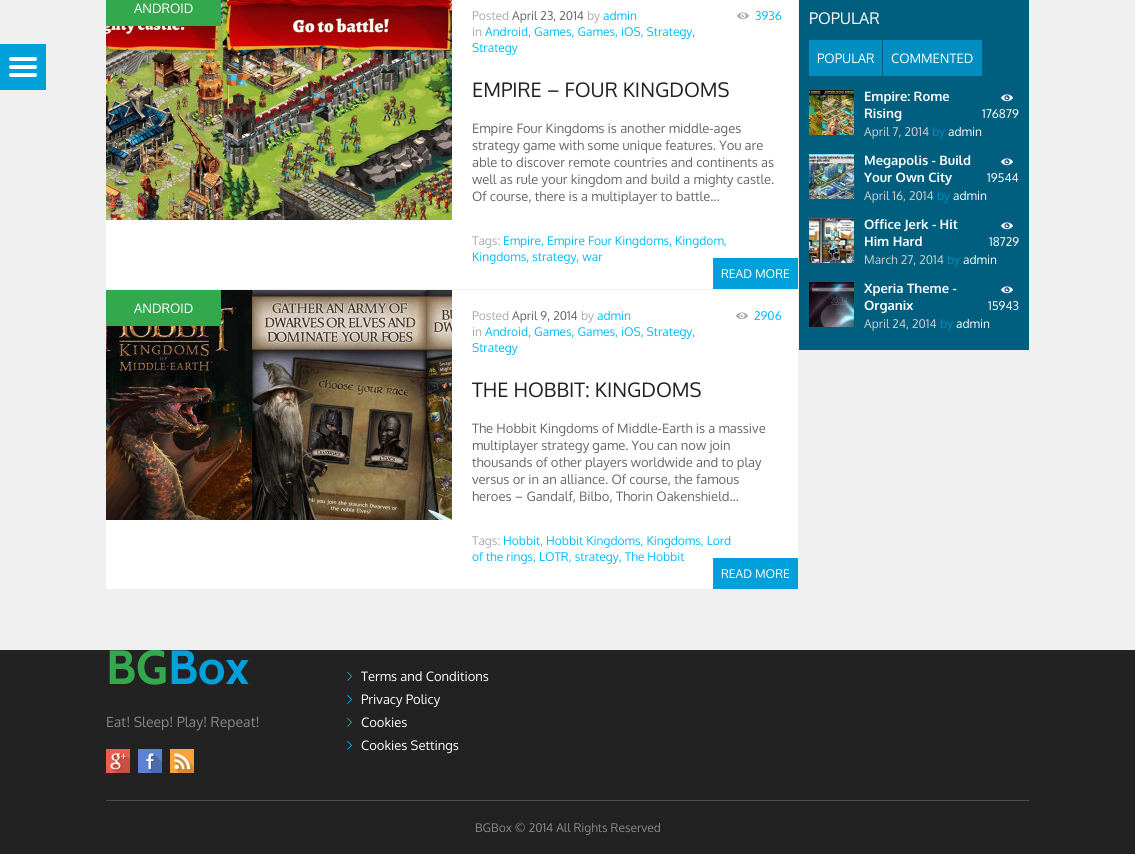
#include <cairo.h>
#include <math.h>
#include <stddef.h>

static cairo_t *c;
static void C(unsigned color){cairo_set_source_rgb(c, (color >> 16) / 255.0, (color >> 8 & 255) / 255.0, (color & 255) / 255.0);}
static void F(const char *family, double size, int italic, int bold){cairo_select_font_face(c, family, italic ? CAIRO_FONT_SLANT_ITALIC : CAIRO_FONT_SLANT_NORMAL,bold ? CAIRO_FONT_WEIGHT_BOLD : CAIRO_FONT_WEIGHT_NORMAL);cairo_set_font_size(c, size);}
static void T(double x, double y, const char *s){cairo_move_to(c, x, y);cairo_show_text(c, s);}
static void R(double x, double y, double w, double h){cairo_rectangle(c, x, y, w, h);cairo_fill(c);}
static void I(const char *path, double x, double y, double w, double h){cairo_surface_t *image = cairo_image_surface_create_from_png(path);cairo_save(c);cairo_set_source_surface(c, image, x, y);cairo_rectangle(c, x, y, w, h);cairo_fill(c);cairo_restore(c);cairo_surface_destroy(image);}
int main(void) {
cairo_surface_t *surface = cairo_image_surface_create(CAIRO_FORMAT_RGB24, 1135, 854);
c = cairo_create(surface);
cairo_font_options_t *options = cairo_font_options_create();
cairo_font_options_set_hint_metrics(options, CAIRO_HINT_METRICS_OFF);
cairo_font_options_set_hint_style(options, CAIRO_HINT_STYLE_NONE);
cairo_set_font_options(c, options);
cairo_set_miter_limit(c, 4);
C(0xf0f0f0);
cairo_paint(c);
C(0x00a0db);
R(0,44,46,46);
I("1.png",9,57,28,20);
C(0xffffff);
R(106,0,692,289);
I("2.png",106,0,346,220);
C(0x34a84d);
R(106,0,115,26);
F("Oxygen",13,0,0);
C(0xffffff);
T(134,13,"ANDROID");
F("Oxygen",12,0,0);
C(0xaaaaaa);
T(472,20,"Posted");
C(0x666666);
T(512,20,"April 23, 2014");
C(0xaaaaaa);
T(587,20,"by");
C(0x00bcff);
T(603,20,"admin");
I("3.png",737,12,12,8);
T(755,20,"3936");
C(0xaaaaaa);
T(472,36,"in");
C(0x00bcff);
T(485,36,"Android, Games, Games, iOS, Strategy,");
T(472,52,"Strategy");
F("Oxygen",20,0,0);
C(0x222222);
T(472,97,"EMPIRE – FOUR KINGDOMS");
F("Oxygen",13,0,0);
C(0x666666);
T(472,133,"Empire Four Kingdoms is another middle-ages");
T(472,150,"strategy game with some unique features. You are");
T(472,167,"able to discover remote countries and continents as");
T(472,184,"well as rule your kingdom and build a mighty castle.");
T(472,201,"Of course, there is a multiplayer to battle...");
C(0x00a0db);
R(713,258,85,31);
F("Oxygen",12,0,0);
C(0xffffff);
T(721,278,"READ MORE");
C(0xaaaaaa);
T(472,245,"Tags:");
C(0x00bcff);
T(503,245,"Empire, Empire Four Kingdoms, Kingdom,");
T(472,261,"Kingdoms, strategy, war");
C(0xffffff);
R(106,290,692,299);
I("4.png",106,290,346,230);
C(0x34a84d);
R(106,290,115,36);
F("Oxygen",13,0,0);
C(0xffffff);
T(134,313,"ANDROID");
F("Oxygen",12,0,0);
C(0xaaaaaa);
T(472,320,"Posted");
C(0x666666);
T(512,320,"April 9, 2014");
C(0xaaaaaa);
T(581,320,"by");
C(0x00bcff);
T(597,320,"admin");
I("3.png",736,312,12,8);
T(754,320,"2906");
C(0xaaaaaa);
T(472,336,"in");
C(0x00bcff);
T(485,336,"Android, Games, Games, iOS, Strategy,");
T(472,352,"Strategy");
F("Oxygen",20,0,0);
C(0x222222);
T(472,397,"THE HOBBIT: KINGDOMS");
F("Oxygen",13,0,0);
C(0x666666);
T(472,433,"The Hobbit Kingdoms of Middle-Earth is a massive");
T(472,450,"multiplayer strategy game. You can now join");
T(472,467,"thousands of other players worldwide and to play");
T(472,484,"versus or in an alliance. Of course, the famous");
T(472,501,"heroes – Gandalf, Bilbo, Thorin Oakenshield...");
C(0x00a0db);
R(713,558,85,31);
F("Oxygen",12,0,0);
C(0xffffff);
T(721,578,"READ MORE");
C(0xaaaaaa);
T(472,545,"Tags:");
C(0x00bcff);
T(503,545,"Hobbit, Hobbit Kingdoms, Kingdoms, Lord");
T(472,561,"of the rings, LOTR, strategy, The Hobbit");
C(0x005e7f);
R(799,0,230,350);
F("Oxygen",16,0,0);
C(0xffffff);
T(809,24,"POPULAR");
C(0x008ec0);
R(809,40,73,36);
F("Oxygen",13,0,0);
C(0xffffff);
T(817,63,"POPULAR");
C(0x008ec0);
R(883,40,99,36);
C(0xffffff);
T(891,63,"COMMENTED");
I("5.png",809,90,45,45);
F("Oxygen",13,0,1);
T(864,101,"Empire: Rome");
T(864,118,"Rising");
I("6.png",1001,94,12,8);
F("Oxygen",12,0,0);
T(982,118,"176879");
C(0xd0d0d0);
T(864,136,"April 7, 2014");
C(0x008ec0);
T(932,136,"by");
C(0xffffff);
T(948,136,"admin");
I("7.png",809,154,45,45);
F("Oxygen",13,0,1);
T(864,165,"Megapolis - Build");
T(864,182,"Your Own City");
I("6.png",1001,158,12,8);
F("Oxygen",12,0,0);
T(987,182,"19544");
C(0xd0d0d0);
T(864,200,"April 16, 2014");
C(0x008ec0);
T(937,200,"by");
C(0xffffff);
T(953,200,"admin");
I("8.png",809,218,45,45);
F("Oxygen",13,0,1);
T(864,229,"Office Jerk - Hit");
T(864,246,"Him Hard");
I("6.png",1001,222,12,8);
F("Oxygen",12,0,0);
T(989,246,"18729");
C(0xd0d0d0);
T(864,264,"March 27, 2014");
C(0x008ec0);
T(947,264,"by");
C(0xffffff);
T(963,264,"admin");
I("9.png",809,282,45,45);
F("Oxygen",13,0,1);
T(864,293,"Xperia Theme -");
T(864,310,"Organix");
I("6.png",1001,286,12,8);
F("Oxygen",12,0,0);
T(988,310,"15943");
C(0xd0d0d0);
T(864,328,"April 24, 2014");
C(0x008ec0);
T(940,328,"by");
C(0xffffff);
T(956,328,"admin");
C(0x222222);
R(0,650,1135,204);
C(0x4e4e4e);
R(106,800,923,1);
cairo_save(c);
cairo_rectangle(c,106,650,230,149);
cairo_clip(c);
F("Cabin",48,0,1);
C(0x34a84d);
T(106,684,"BG");
cairo_restore(c);
F("Cabin",48,0,1);
C(0x00a0db);
T(168,684,"Box");
F("Oxygen",14,0,0);
C(0x888888);
T(106,727,"Eat! Sleep! Play! Repeat!");
I("10.png",106,749,24,24);
I("11.png",138,749,24,24);
I("12.png",170,749,24,24);
I("13.png",347,671,5,10);
F("Oxygen",13,0,0);
C(0xffffff);
T(361,681,"Terms and Conditions");
I("13.png",347,694,5,10);
T(361,704,"Privacy Policy");
I("13.png",347,717,5,10);
T(361,727,"Cookies");
I("13.png",347,740,5,10);
T(361,750,"Cookies Settings");
F("Oxygen",12,0,0);
C(0x888888);
T(475,832,"BGBox © 2014 All Rights Reserved");
cairo_surface_write_to_png(surface, "o.png");
cairo_font_options_destroy(options);
cairo_destroy(c);
cairo_surface_destroy(surface);
return 0;
}
